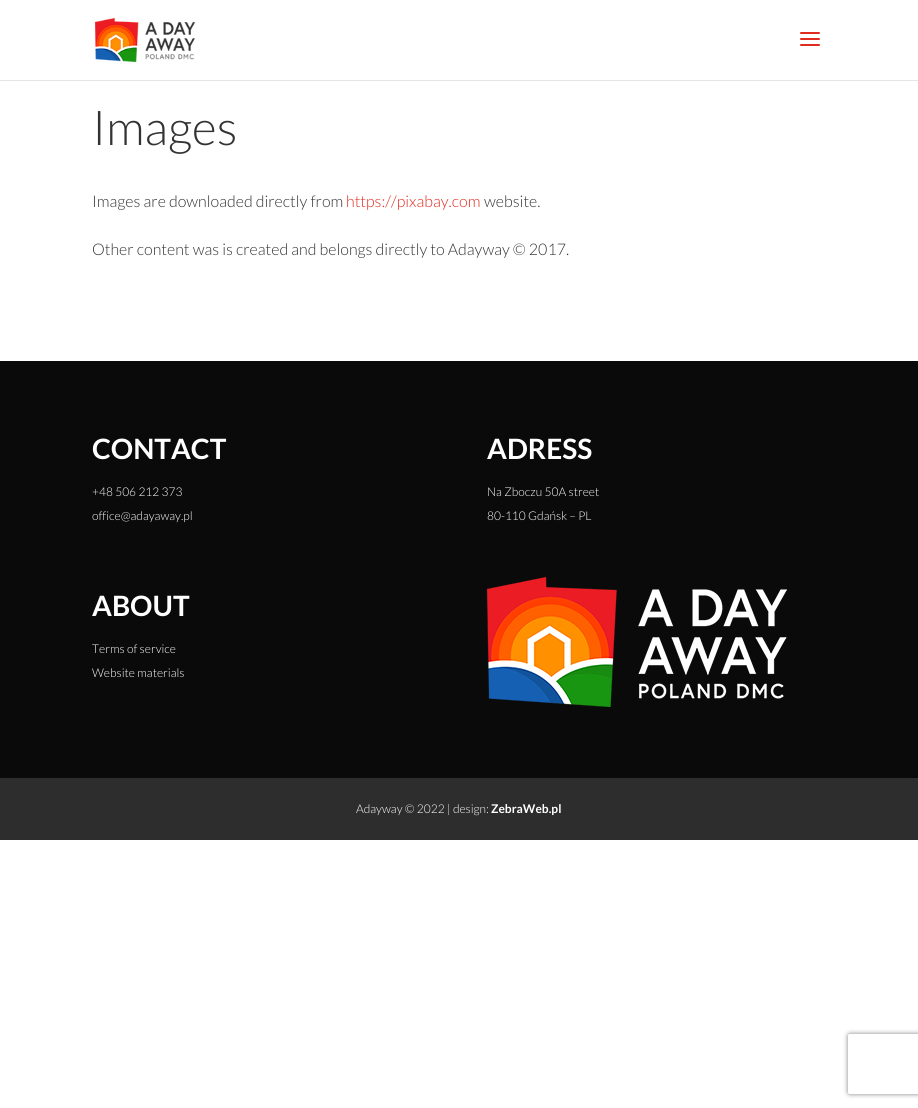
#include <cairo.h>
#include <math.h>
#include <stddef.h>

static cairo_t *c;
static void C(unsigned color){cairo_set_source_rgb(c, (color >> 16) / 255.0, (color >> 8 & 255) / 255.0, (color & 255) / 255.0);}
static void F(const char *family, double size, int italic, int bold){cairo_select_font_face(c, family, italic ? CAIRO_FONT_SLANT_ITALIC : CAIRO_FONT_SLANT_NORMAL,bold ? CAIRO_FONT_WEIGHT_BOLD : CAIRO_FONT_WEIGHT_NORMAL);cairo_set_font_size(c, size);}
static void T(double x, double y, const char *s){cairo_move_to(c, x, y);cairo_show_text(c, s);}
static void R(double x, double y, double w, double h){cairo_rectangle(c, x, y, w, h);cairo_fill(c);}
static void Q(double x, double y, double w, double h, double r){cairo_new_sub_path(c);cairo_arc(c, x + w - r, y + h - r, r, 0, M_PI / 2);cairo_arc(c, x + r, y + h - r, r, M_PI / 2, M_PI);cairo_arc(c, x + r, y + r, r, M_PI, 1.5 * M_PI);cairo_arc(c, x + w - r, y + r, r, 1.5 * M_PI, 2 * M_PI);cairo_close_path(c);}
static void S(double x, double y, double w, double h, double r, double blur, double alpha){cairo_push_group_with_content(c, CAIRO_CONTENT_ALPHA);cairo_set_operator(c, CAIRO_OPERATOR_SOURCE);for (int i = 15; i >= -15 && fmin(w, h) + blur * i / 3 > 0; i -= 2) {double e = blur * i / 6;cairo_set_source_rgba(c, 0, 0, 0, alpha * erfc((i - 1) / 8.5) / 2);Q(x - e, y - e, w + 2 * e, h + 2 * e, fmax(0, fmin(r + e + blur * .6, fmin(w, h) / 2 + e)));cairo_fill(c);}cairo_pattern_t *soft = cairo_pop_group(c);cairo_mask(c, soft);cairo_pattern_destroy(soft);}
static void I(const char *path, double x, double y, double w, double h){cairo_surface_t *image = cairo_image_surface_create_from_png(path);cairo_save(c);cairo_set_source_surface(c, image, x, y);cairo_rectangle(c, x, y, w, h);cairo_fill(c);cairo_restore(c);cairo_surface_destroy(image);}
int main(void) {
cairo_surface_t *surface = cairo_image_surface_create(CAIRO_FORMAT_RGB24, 918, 1108);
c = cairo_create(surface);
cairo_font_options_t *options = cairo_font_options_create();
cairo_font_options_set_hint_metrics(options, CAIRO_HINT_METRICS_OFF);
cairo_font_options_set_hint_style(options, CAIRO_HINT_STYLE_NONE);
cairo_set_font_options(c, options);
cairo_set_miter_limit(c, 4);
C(0xffffff);
cairo_paint(c);
C(0xe6e6e6);
R(0,80,918,1);
I("1.png",95,18,100,44);
I("2.png",800,32,20,14);
F("Lato Light",48,0,0);
C(0x333333);
T(92,145,"Images");
F("Lato Light",16,0,0);
T(92,207,"Images are downloaded directly from");
C(0xe02b20);
T(346,207,"https://pixabay.com");
C(0x333333);
T(484,207,"website.");
T(92,255,"Other content was is created and belongs directly to Adayway © 2017.");
C(0x0a0a0a);
R(0,361,918,417);
F("Lato",28,0,1);
C(0xffffff);
T(92,459,"CONTACT");
F("Lato Light",12,0,0);
T(92,496,"+48 506 212 373");
T(92,520,"office@adayaway.pl");
F("Lato",28,0,1);
T(487,459,"ADRESS");
F("Lato Light",12,0,0);
T(487,496,"Na Zboczu 50A street");
T(487,520,"80-110 Gdańsk – PL");
F("Lato",28,0,1);
T(92,616,"ABOUT");
F("Lato Light",12,0,0);
T(92,653,"Terms of service");
T(92,677,"Website materials");
I("3.png",487,577,300,130);
C(0x2d2d2d);
R(0,778,918,62);
C(0xffffff);
T(356,813,"Adayway © 2022 | design:");
F("Lato",12,0,1);
T(491,813,"ZebraWeb.pl");
cairo_save(c);
cairo_set_fill_rule(c,CAIRO_FILL_RULE_EVEN_ODD);
cairo_new_path(c);
cairo_move_to(c,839,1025);
cairo_line_to(c,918,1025);
cairo_line_to(c,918,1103);
cairo_line_to(c,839,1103);
cairo_close_path(c);
cairo_move_to(c,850,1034);
cairo_line_to(c,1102,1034);
cairo_curve_to(c,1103,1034,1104,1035,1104,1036);
cairo_line_to(c,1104,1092);
cairo_curve_to(c,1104,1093,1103,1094,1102,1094);
cairo_line_to(c,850,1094);
cairo_curve_to(c,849,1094,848,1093,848,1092);
cairo_line_to(c,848,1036);
cairo_curve_to(c,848,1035,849,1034,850,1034);
cairo_close_path(c);
cairo_clip(c);
C(0x808080);
S(848,1034,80,60,2,2.5,1);
cairo_restore(c);
cairo_surface_write_to_png(surface, "o.png");
cairo_font_options_destroy(options);
cairo_destroy(c);
cairo_surface_destroy(surface);
return 0;
}
